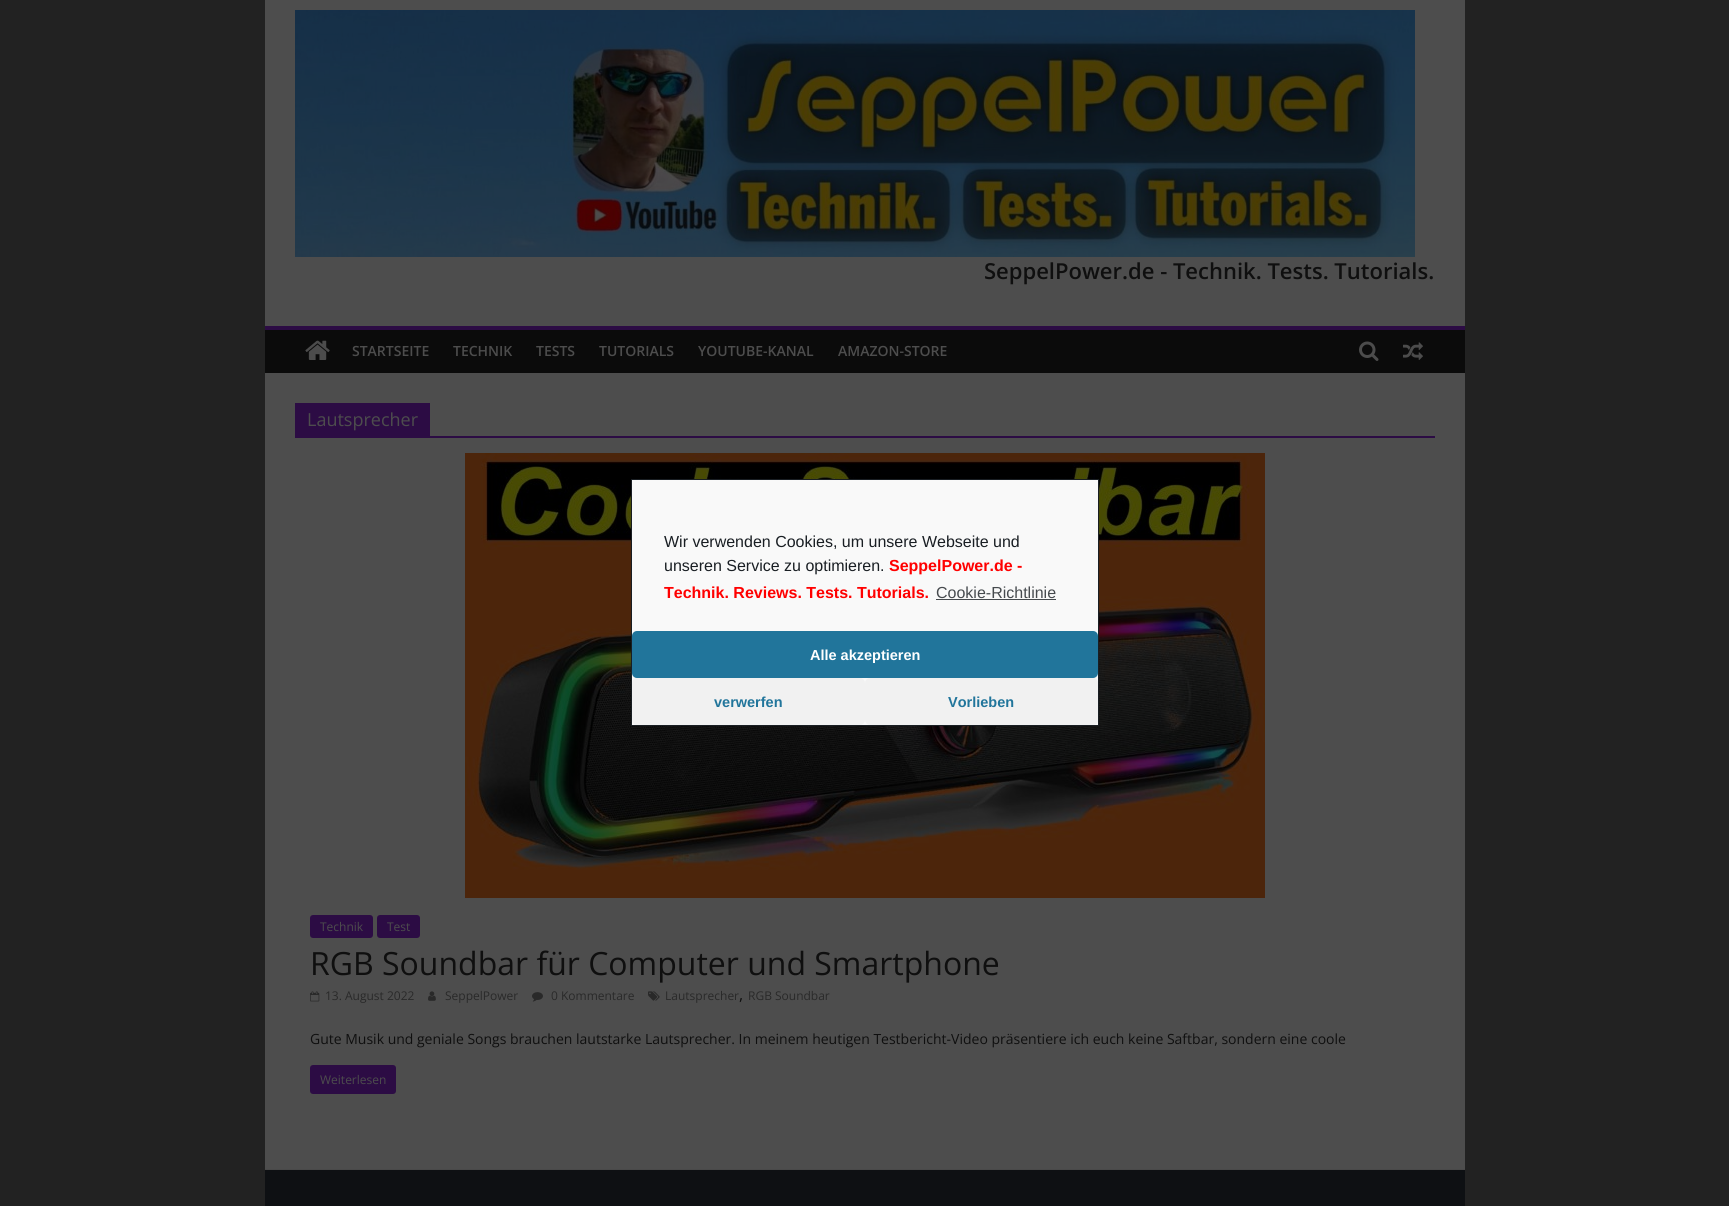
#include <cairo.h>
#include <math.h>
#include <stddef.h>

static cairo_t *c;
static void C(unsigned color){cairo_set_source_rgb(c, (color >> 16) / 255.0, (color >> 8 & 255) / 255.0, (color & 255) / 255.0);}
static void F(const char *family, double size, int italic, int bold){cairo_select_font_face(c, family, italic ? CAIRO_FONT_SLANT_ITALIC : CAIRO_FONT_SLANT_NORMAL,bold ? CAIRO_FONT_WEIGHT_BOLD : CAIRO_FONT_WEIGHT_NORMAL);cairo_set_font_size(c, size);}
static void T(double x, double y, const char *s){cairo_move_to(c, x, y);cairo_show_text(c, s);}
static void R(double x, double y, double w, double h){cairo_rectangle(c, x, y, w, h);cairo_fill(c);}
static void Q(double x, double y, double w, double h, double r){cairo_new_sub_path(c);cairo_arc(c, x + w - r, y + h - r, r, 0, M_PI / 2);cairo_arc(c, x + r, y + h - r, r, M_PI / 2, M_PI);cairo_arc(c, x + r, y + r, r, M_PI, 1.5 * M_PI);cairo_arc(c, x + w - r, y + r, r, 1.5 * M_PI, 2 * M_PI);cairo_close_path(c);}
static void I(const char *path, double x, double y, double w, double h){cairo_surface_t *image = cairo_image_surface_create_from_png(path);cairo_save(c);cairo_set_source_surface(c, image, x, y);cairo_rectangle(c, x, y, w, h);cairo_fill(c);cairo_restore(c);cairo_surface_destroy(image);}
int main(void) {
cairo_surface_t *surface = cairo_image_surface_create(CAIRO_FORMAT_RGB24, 1729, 1206);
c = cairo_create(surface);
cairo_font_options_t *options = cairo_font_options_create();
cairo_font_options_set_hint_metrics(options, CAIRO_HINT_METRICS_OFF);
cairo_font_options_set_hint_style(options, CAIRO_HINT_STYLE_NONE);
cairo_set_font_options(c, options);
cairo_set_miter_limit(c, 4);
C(0x222222);
cairo_paint(c);
C(0x4d4d4d);
R(265,0,1200,326);
I("1.png",295,10,1120,247);
F("Open Sans SemiBold",22,0,0);
C(0x0f0f0f);
T(984,279,"SeppelPower.de - Technik. Tests. Tutorials.");
C(0x0b0b0b);
R(265,330,1200,43);
C(0x2c0c44);
R(265,326,1200,4);
I("2.png",305,340,25,20);
F("Open Sans SemiBold",14,0,0);
C(0x4d4d4d);
T(352,356,"STARTSEITE");
T(453,356,"TECHNIK");
T(536,356,"TESTS");
T(599,356,"TUTORIALS");
T(698,356,"YOUTUBE-KANAL");
T(838,356,"AMAZON-STORE");
I("3.png",1359,341,20,20);
I("4.png",1403,342,20,18);
R(265,373,1200,796);
C(0x2c0c44);
R(295,436,1140,2);
R(295,403,135,33);
F("Open Sans",18,0,0);
C(0x4d4d4d);
T(307,426,"Lautsprecher");
I("5.png",465,453,800,445);
C(0x2c0c44);
Q(310,915,63,23,3);
cairo_fill(c);
F("Open Sans",12,0,0);
C(0x4d4d4d);
T(320,931,"Technik");
C(0x2c0c44);
Q(377,915,43,23,3);
cairo_fill(c);
C(0x4d4d4d);
T(387,931,"Test");
F("Open Sans",32,0,0);
C(0x0f0f0f);
T(310,975,"RGB Soundbar für Computer und Smartphone");
I("6.png",310,991,10,11);
F("Open Sans",12,0,0);
C(0x292929);
T(325,1000,"13. August 2022");
I("7.png",428,991,8,10);
T(445,1000,"SeppelPower");
I("8.png",532,992,11,10);
T(551,1000,"0 Kommentare");
I("9.png",648,991,12,10);
T(665,1000,"Lautsprecher");
F("Open Sans",16,0,0);
C(0x0f0f0f);
T(739,1000,",");
F("Open Sans",12,0,0);
C(0x292929);
T(748,1000,"RGB Soundbar");
F("Open Sans",14,0,0);
C(0x0f0f0f);
T(310,1044,"Gute Musik und geniale Songs brauchen lautstarke Lautsprecher. In meinem heutigen Testbericht-Video präsentiere ich euch keine Saftbar, sondern eine coole");
C(0x2c0c44);
Q(310,1065,86,29,3);
cairo_fill(c);
F("Open Sans",12,0,0);
C(0x4d4d4d);
T(320,1084,"Weiterlesen");
C(0x0e1013);
R(265,1170,1200,36);
C(0x494949);
R(265,1169,1200,1);
C(0xf9f9f9);
cairo_rectangle(c,631.5,479.5,467,246);
cairo_fill_preserve(c);
C(0x191e23);
cairo_set_line_width(c,1);
cairo_stroke(c);
F("Liberation Sans",16,0,0);
T(664,547,"Wir verwenden Cookies, um unsere Webseite und");
T(664,571,"unseren Service zu optimieren.");
F("Liberation Sans",16,0,1);
C(0xff0000);
T(889,571,"SeppelPower.de -");
T(664,598,"Technik. Reviews. Tests. Tutorials.");
F("Liberation Sans",16,0,0);
C(0x464a4e);
T(936,598,"Cookie-Richtlinie");
R(936,599,120,1);
C(0x21759b);
Q(632,631,466,47,5);
cairo_fill(c);
F("Liberation Sans",14.5,0,1);
C(0xffffff);
T(810,660,"Alle akzeptieren");
C(0xf1f1f1);
Q(632,678,233,47,5);
cairo_fill(c);
C(0x21759b);
T(714,707,"verwerfen");
C(0xf1f1f1);
Q(865,678,233,47,5);
cairo_fill(c);
C(0x21759b);
T(948,707,"Vorlieben");
cairo_surface_write_to_png(surface, "o.png");
cairo_font_options_destroy(options);
cairo_destroy(c);
cairo_surface_destroy(surface);
return 0;
}
